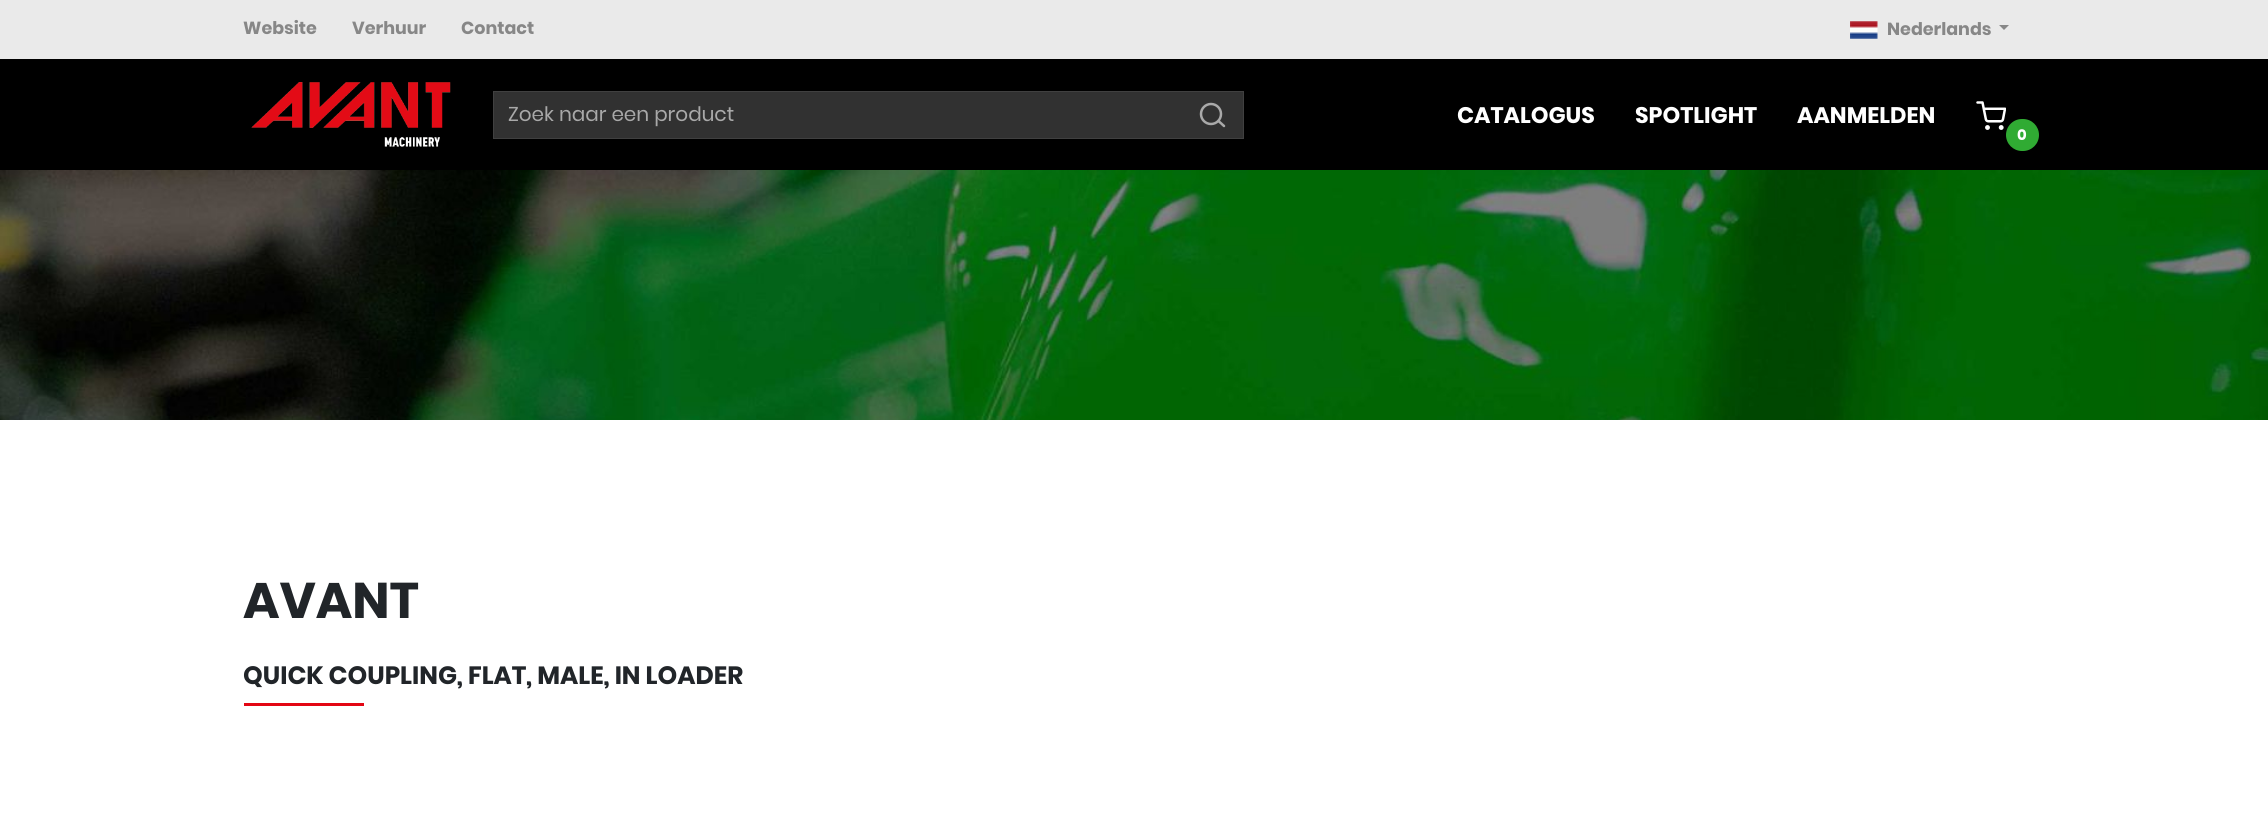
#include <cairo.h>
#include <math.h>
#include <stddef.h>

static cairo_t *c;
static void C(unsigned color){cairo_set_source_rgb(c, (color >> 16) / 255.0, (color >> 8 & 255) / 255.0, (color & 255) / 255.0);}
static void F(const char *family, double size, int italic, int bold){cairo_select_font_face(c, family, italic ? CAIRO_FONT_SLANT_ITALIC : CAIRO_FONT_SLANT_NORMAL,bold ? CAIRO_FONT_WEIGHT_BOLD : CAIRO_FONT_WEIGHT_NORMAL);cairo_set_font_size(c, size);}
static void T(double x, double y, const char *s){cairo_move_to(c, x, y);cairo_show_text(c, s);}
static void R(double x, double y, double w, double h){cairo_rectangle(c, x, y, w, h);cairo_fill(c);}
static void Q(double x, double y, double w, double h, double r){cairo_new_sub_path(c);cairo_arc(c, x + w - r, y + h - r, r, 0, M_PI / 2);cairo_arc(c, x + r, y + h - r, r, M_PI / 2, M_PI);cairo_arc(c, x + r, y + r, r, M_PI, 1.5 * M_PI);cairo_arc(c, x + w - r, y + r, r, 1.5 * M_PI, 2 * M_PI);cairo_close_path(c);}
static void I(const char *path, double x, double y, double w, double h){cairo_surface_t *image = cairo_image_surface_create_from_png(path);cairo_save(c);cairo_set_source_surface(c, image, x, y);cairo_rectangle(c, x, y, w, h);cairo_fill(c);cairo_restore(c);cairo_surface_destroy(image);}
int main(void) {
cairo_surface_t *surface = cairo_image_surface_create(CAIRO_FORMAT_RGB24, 2268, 821);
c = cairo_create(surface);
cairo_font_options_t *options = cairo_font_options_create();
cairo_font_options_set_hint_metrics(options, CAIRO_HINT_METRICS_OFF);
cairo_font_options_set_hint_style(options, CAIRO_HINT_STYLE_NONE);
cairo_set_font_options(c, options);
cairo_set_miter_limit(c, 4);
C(0xffffff);
cairo_paint(c);
C(0xeaeaea);
R(0,0,2268,59);
F("Poppins",17.5,0,1);
C(0x878787);
T(243,34,"Website");
T(352,34,"Verhuur");
T(461,34,"Contact");
I("1.png",1850,21,28,18);
T(1887,35,"Nederlands");
cairo_new_path(c);
cairo_move_to(c,1999,25);
cairo_line_to(c,2009,25);
cairo_line_to(c,2004,30);
cairo_close_path(c);
cairo_fill(c);
C(0x000000);
R(0,59,2268,111);
I("2.png",251,82,200,65);
C(0x313131);
cairo_rectangle(c,493.5,91.5,750,47);
cairo_fill_preserve(c);
C(0x404040);
cairo_set_line_width(c,1);
cairo_stroke(c);
F("Poppins",20,0,0);
C(0xa9a9a9);
T(508,121,"Zoek naar een product");
cairo_new_path(c);
cairo_arc(c,1211,114,10,0,2 * M_PI);
cairo_set_line_width(c,2.5);
cairo_stroke(c);
cairo_new_path(c);
cairo_move_to(c,1224,126);
cairo_line_to(c,1218.5,121);
cairo_set_line_cap(c,CAIRO_LINE_CAP_ROUND);
cairo_set_line_join(c,CAIRO_LINE_JOIN_ROUND);
cairo_stroke(c);
F("Poppins",22.5,0,1);
C(0xffffff);
T(1457,123,"CATALOGUS");
T(1635,123,"SPOTLIGHT");
T(1797,123,"AANMELDEN");
I("3.png",1976,101,30,29);
C(0x30ab33);
Q(2006,119,33,32,16);
cairo_fill(c);
F("Poppins",15,0,1);
C(0xffffff);
T(2017,140,"0");
I("4.png",0,170,2268,250);
F("Poppins",50,0,1);
C(0x212529);
T(243,618,"AVANT");
F("Poppins",25,0,1);
T(243,684,"QUICK COUPLING, FLAT, MALE, IN LOADER");
C(0xe30613);
R(244,703,120,3);
cairo_surface_write_to_png(surface, "o.png");
cairo_font_options_destroy(options);
cairo_destroy(c);
cairo_surface_destroy(surface);
return 0;
}
